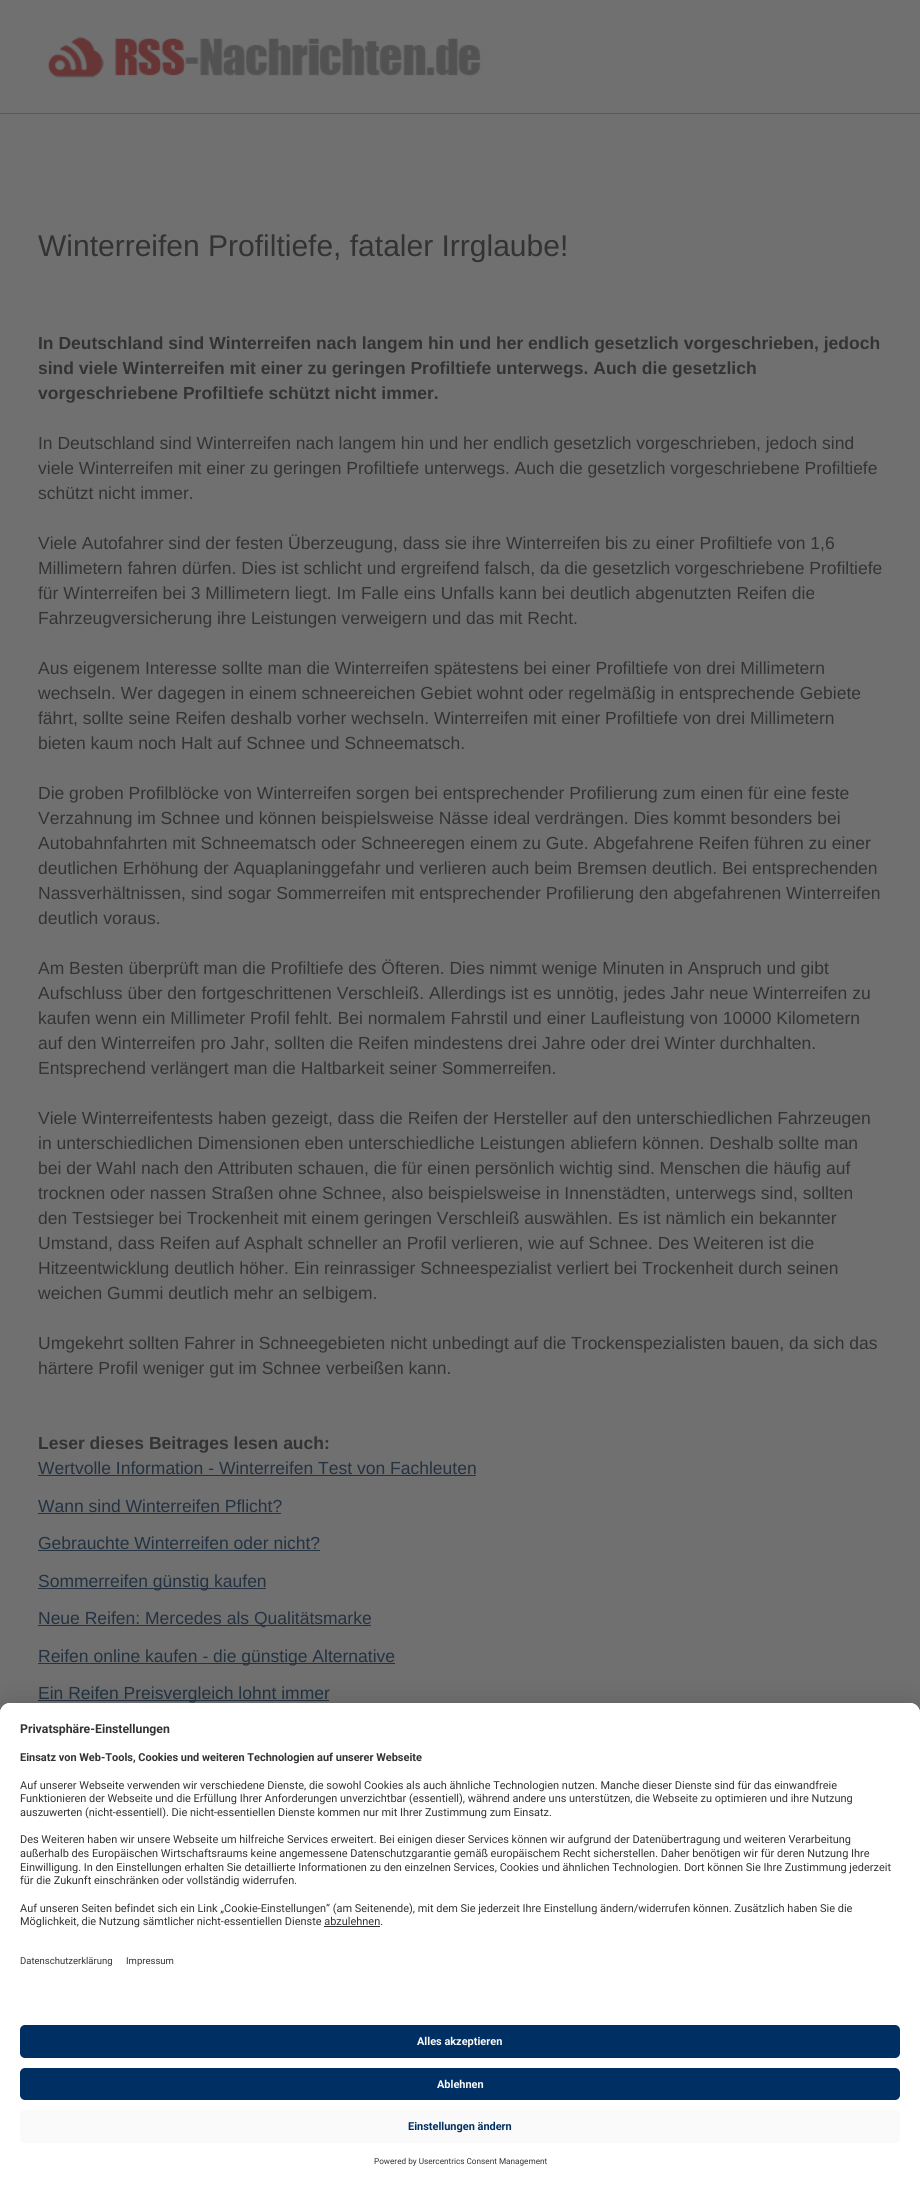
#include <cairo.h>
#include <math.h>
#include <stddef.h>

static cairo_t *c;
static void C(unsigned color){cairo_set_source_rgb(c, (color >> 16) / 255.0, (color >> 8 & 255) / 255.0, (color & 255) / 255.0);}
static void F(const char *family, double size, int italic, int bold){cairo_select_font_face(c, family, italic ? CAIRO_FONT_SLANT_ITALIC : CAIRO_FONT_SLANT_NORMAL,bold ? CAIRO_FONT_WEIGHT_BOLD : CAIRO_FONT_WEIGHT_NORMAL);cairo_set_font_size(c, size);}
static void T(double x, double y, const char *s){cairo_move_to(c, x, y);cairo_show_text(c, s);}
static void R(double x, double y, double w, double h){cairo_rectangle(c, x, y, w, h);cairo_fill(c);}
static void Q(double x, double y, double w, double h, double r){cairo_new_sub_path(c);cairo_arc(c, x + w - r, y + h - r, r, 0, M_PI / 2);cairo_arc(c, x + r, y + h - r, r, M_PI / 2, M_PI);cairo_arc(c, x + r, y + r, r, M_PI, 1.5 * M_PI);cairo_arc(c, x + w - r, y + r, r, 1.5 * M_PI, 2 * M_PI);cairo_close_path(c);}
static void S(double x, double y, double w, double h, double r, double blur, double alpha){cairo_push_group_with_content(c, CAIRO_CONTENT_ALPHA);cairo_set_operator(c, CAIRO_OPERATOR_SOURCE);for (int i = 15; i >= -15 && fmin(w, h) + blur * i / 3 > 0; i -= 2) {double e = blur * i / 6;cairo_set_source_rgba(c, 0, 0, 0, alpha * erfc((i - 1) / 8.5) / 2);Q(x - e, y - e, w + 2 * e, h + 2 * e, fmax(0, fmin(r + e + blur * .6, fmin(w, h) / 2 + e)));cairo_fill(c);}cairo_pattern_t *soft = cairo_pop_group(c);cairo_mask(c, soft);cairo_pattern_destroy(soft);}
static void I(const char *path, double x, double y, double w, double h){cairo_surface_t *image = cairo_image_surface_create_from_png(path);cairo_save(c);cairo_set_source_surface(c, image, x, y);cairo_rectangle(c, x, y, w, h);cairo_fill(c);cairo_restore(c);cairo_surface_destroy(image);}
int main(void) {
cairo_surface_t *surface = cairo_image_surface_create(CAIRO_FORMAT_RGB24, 920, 2187);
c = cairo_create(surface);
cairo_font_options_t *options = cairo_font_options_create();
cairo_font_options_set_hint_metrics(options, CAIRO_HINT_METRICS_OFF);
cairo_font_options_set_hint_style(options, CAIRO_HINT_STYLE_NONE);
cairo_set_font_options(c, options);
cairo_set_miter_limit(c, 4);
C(0x707070);
cairo_paint(c);
C(0x575a5c);
R(0,113,920,1);
I("1.png",48,37,433,41);
F("Liberation Sans",30,0,0);
C(0x333333);
T(38,256,"Winterreifen Profiltiefe, fataler Irrglaube!");
F("Liberation Sans",17.5,0,1);
T(38,349,"In Deutschland sind Winterreifen nach langem hin und her endlich gesetzlich vorgeschrieben, jedoch");
T(38,374,"sind viele Winterreifen mit einer zu geringen Profiltiefe unterwegs. Auch die gesetzlich");
T(38,399,"vorgeschriebene Profiltiefe schützt nicht immer.");
F("Liberation Sans",17.5,0,0);
T(38,449,"In Deutschland sind Winterreifen nach langem hin und her endlich gesetzlich vorgeschrieben, jedoch sind");
T(38,474,"viele Winterreifen mit einer zu geringen Profiltiefe unterwegs. Auch die gesetzlich vorgeschriebene Profiltiefe");
T(38,499,"schützt nicht immer.");
T(38,549,"Viele Autofahrer sind der festen Überzeugung, dass sie ihre Winterreifen bis zu einer Profiltiefe von 1,6");
T(38,574,"Millimetern fahren dürfen. Dies ist schlicht und ergreifend falsch, da die gesetzlich vorgeschriebene Profiltiefe");
T(38,599,"für Winterreifen bei 3 Millimetern liegt. Im Falle eins Unfalls kann bei deutlich abgenutzten Reifen die");
T(38,624,"Fahrzeugversicherung ihre Leistungen verweigern und das mit Recht.");
T(38,674,"Aus eigenem Interesse sollte man die Winterreifen spätestens bei einer Profiltiefe von drei Millimetern");
T(38,699,"wechseln. Wer dagegen in einem schneereichen Gebiet wohnt oder regelmäßig in entsprechende Gebiete");
T(38,724,"fährt, sollte seine Reifen deshalb vorher wechseln. Winterreifen mit einer Profiltiefe von drei Millimetern");
T(38,749,"bieten kaum noch Halt auf Schnee und Schneematsch.");
T(38,799,"Die groben Profilblöcke von Winterreifen sorgen bei entsprechender Profilierung zum einen für eine feste");
T(38,824,"Verzahnung im Schnee und können beispielsweise Nässe ideal verdrängen. Dies kommt besonders bei");
T(38,849,"Autobahnfahrten mit Schneematsch oder Schneeregen einem zu Gute. Abgefahrene Reifen führen zu einer");
T(38,874,"deutlichen Erhöhung der Aquaplaninggefahr und verlieren auch beim Bremsen deutlich. Bei entsprechenden");
T(38,899,"Nassverhältnissen, sind sogar Sommerreifen mit entsprechender Profilierung den abgefahrenen Winterreifen");
T(38,924,"deutlich voraus.");
T(38,974,"Am Besten überprüft man die Profiltiefe des Öfteren. Dies nimmt wenige Minuten in Anspruch und gibt");
T(38,999,"Aufschluss über den fortgeschrittenen Verschleiß. Allerdings ist es unnötig, jedes Jahr neue Winterreifen zu");
T(38,1024,"kaufen wenn ein Millimeter Profil fehlt. Bei normalem Fahrstil und einer Laufleistung von 10000 Kilometern");
T(38,1049,"auf den Winterreifen pro Jahr, sollten die Reifen mindestens drei Jahre oder drei Winter durchhalten.");
T(38,1074,"Entsprechend verlängert man die Haltbarkeit seiner Sommerreifen.");
T(38,1124,"Viele Winterreifentests haben gezeigt, dass die Reifen der Hersteller auf den unterschiedlichen Fahrzeugen");
T(38,1149,"in unterschiedlichen Dimensionen eben unterschiedliche Leistungen abliefern können. Deshalb sollte man");
T(38,1174,"bei der Wahl nach den Attributen schauen, die für einen persönlich wichtig sind. Menschen die häufig auf");
T(38,1199,"trocknen oder nassen Straßen ohne Schnee, also beispielsweise in Innenstädten, unterwegs sind, sollten");
T(38,1224,"den Testsieger bei Trockenheit mit einem geringen Verschleiß auswählen. Es ist nämlich ein bekannter");
T(38,1249,"Umstand, dass Reifen auf Asphalt schneller an Profil verlieren, wie auf Schnee. Des Weiteren ist die");
T(38,1274,"Hitzeentwicklung deutlich höher. Ein reinrassiger Schneespezialist verliert bei Trockenheit durch seinen");
T(38,1299,"weichen Gummi deutlich mehr an selbigem.");
T(38,1349,"Umgekehrt sollten Fahrer in Schneegebieten nicht unbedingt auf die Trockenspezialisten bauen, da sich das");
T(38,1374,"härtere Profil weniger gut im Schnee verbeißen kann.");
F("Liberation Sans",17.5,0,1);
T(38,1449,"Leser dieses Beitrages lesen auch:");
F("Liberation Sans",17.5,0,0);
C(0x243241);
T(38,1474,"Wertvolle Information - Winterreifen Test von Fachleuten");
R(38,1475,438,1);
T(38,1512,"Wann sind Winterreifen Pflicht?");
R(38,1513,243,1);
T(38,1549,"Gebrauchte Winterreifen oder nicht?");
R(38,1550,282,1);
R(38,1588,228,1);
T(38,1587,"Sommerreifen günstig kaufen");
R(38,1625,333,1);
T(38,1624,"Neue Reifen: Mercedes als Qualitätsmarke");
R(38,1663,357,1);
T(38,1662,"Reifen online kaufen - die günstige Alternative");
R(38,1700,291,1);
T(38,1699,"Ein Reifen Preisvergleich lohnt immer");
C(0x000000);
S(0,1709,920,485,10,16,.22);
C(0xffffff);
cairo_new_path(c);
cairo_move_to(c,10,1703);
cairo_line_to(c,910,1703);
cairo_curve_to(c,915.5,1703,920,1707.5,920,1713);
cairo_line_to(c,920,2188);
cairo_line_to(c,0,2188);
cairo_line_to(c,0,1713);
cairo_curve_to(c,0,1707.5,4.5,1703,10,1703);
cairo_close_path(c);
cairo_fill(c);
cairo_new_path(c);
cairo_move_to(c,10,1703);
cairo_line_to(c,910,1703);
cairo_curve_to(c,915.5,1703,920,1707.5,920,1713);
cairo_line_to(c,920,2010);
cairo_line_to(c,0,2010);
cairo_line_to(c,0,1713);
cairo_curve_to(c,0,1707.5,4.5,1703,10,1703);
cairo_close_path(c);
cairo_fill(c);
F("Roboto",12.25,0,1);
C(0x333333);
T(20,1733,"Privatsphäre-Einstellungen");
F("Roboto",10.95,0,1);
T(20,1761,"Einsatz von Web-Tools, Cookies und weiteren Technologien auf unserer Webseite");
F("Roboto",10.95,0,0);
T(20,1789,"Auf unserer Webseite verwenden wir verschiedene Dienste, die sowohl Cookies als auch ähnliche Technologien nutzen. Manche dieser Dienste sind für das einwandfreie");
T(20,1802,"Funktionieren der Webseite und die Erfüllung Ihrer Anforderungen unverzichtbar (essentiell), während andere uns unterstützen, die Webseite zu optimieren und ihre Nutzung");
T(20,1816,"auszuwerten (nicht-essentiell). Die nicht-essentiellen Dienste kommen nur mit Ihrer Zustimmung zum Einsatz.");
T(20,1843,"Des Weiteren haben wir unsere Webseite um hilfreiche Services erweitert. Bei einigen dieser Services können wir aufgrund der Datenübertragung und weiteren Verarbeitung");
T(20,1857,"außerhalb des Europäischen Wirtschaftsraums keine angemessene Datenschutzgarantie gemäß europäischem Recht sicherstellen. Daher benötigen wir für deren Nutzung Ihre");
T(20,1871,"Einwilligung. In den Einstellungen erhalten Sie detaillierte Informationen zu den einzelnen Services, Cookies und ähnlichen Technologien. Dort können Sie Ihre Zustimmung jederzeit");
T(20,1884,"für die Zukunft einschränken oder vollständig widerrufen.");
T(20,1912,"Auf unseren Seiten befindet sich ein Link „Cookie-Einstellungen“ (am Seitenende), mit dem Sie jederzeit Ihre Einstellung ändern/widerrufen können. Zusätzlich haben Sie die");
T(20,1925,"Möglichkeit, die Nutzung sämtlicher nicht-essentiellen Dienste abzulehnen.");
C(0x303030);
R(324,1926,56,1);
F("Roboto",9.5,0,0);
C(0x333333);
T(20,1964,"Datenschutzerklärung");
T(126,1964,"Impressum");
C(0x003063);
Q(20,2025,880,33,5);
cairo_fill(c);
F("Roboto",10.95,0,1);
C(0xfafafa);
T(417,2045,"Alles akzeptieren");
C(0x003063);
Q(20,2068,880,32,5);
cairo_fill(c);
C(0xfafafa);
T(437,2088,"Ablehnen");
Q(20,2110,880,33,5);
cairo_fill(c);
C(0x003063);
T(408,2130,"Einstellungen ändern");
F("Roboto",8.2,0,0);
C(0x333333);
T(374,2164,"Powered by Usercentrics Consent Management");
cairo_surface_write_to_png(surface, "o.png");
cairo_font_options_destroy(options);
cairo_destroy(c);
cairo_surface_destroy(surface);
return 0;
}
